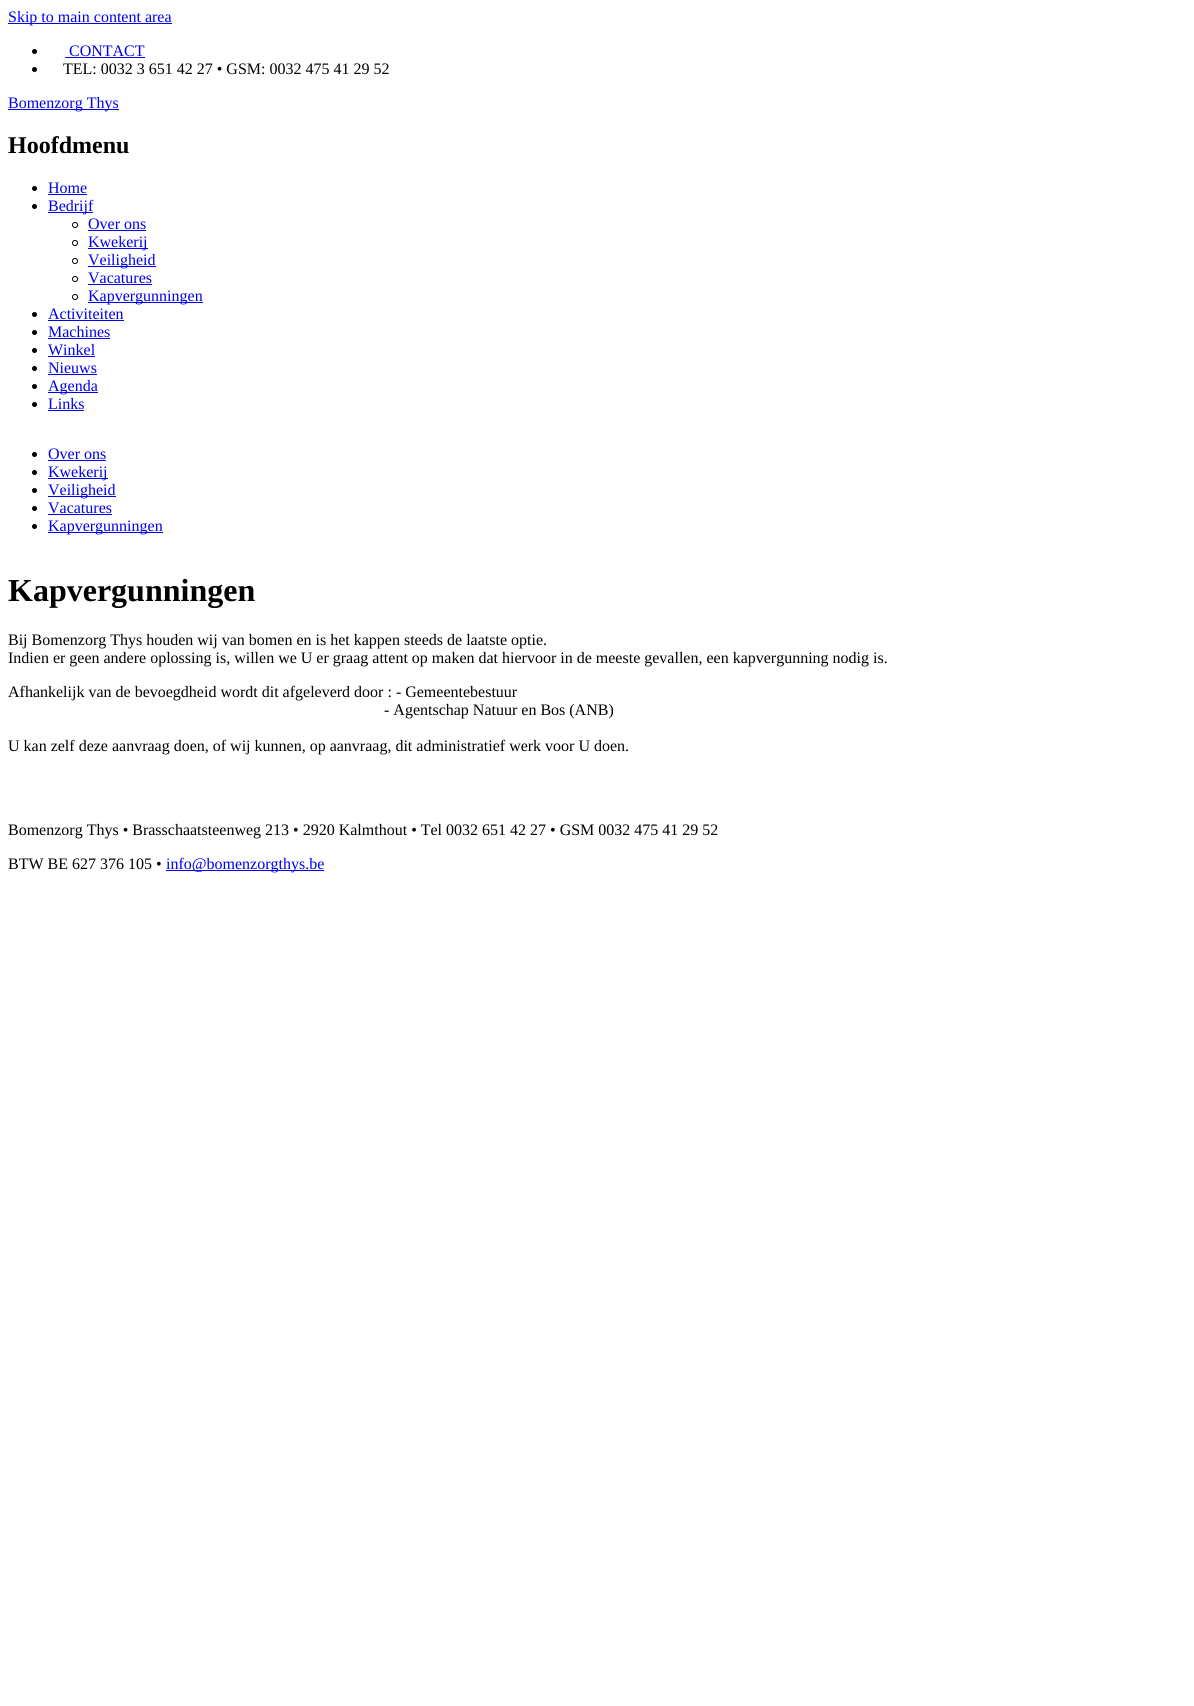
#include <cairo.h>
#include <math.h>
#include <stddef.h>

static cairo_t *c;
static void C(unsigned color){cairo_set_source_rgb(c, (color >> 16) / 255.0, (color >> 8 & 255) / 255.0, (color & 255) / 255.0);}
static void F(const char *family, double size, int italic, int bold){cairo_select_font_face(c, family, italic ? CAIRO_FONT_SLANT_ITALIC : CAIRO_FONT_SLANT_NORMAL,bold ? CAIRO_FONT_WEIGHT_BOLD : CAIRO_FONT_WEIGHT_NORMAL);cairo_set_font_size(c, size);}
static void T(double x, double y, const char *s){cairo_move_to(c, x, y);cairo_show_text(c, s);}
static void R(double x, double y, double w, double h){cairo_rectangle(c, x, y, w, h);cairo_fill(c);}
int main(void) {
cairo_surface_t *surface = cairo_image_surface_create(CAIRO_FORMAT_RGB24, 1194, 1706);
c = cairo_create(surface);
cairo_font_options_t *options = cairo_font_options_create();
cairo_font_options_set_hint_metrics(options, CAIRO_HINT_METRICS_OFF);
cairo_font_options_set_hint_style(options, CAIRO_HINT_STYLE_NONE);
cairo_set_font_options(c, options);
cairo_set_miter_limit(c, 4);
C(0xffffff);
cairo_paint(c);
C(0x0000ee);
R(8,23,164,1);
F("Liberation Serif",16,0,0);
T(8,22,"Skip to main content area");
C(0x000000);
cairo_new_path(c);
cairo_arc(c,34.5,51.5,2.5,0,2 * M_PI);
cairo_fill(c);
C(0x0000ee);
T(69,56,"CONTACT");
R(65,57,80,1);
C(0x000000);
cairo_new_path(c);
cairo_arc(c,34.5,69.5,2.5,0,2 * M_PI);
cairo_fill(c);
T(63,74,"TEL: 0032 3 651 42 27 • GSM: 0032 475 41 29 52");
C(0x0000ee);
R(8,109,111,1);
T(8,108,"Bomenzorg Thys");
F("Liberation Serif",24,0,1);
C(0x000000);
T(8,153,"Hoofdmenu");
cairo_new_path(c);
cairo_arc(c,34.5,188.5,2.5,0,2 * M_PI);
cairo_fill(c);
F("Liberation Serif",16,0,0);
C(0x0000ee);
T(48,193,"Home");
R(48,194,39,1);
C(0x000000);
cairo_new_path(c);
cairo_arc(c,34.5,206.5,2.5,0,2 * M_PI);
cairo_fill(c);
C(0x0000ee);
R(48,212,45,1);
T(48,211,"Bedrijf");
cairo_new_path(c);
cairo_arc(c,75,225,2.5,0,2 * M_PI);
C(0x000000);
cairo_set_line_width(c,1);
cairo_stroke(c);
C(0x0000ee);
T(88,229,"Over ons");
R(88,230,58,1);
cairo_new_path(c);
cairo_arc(c,75,243,2.5,0,2 * M_PI);
C(0x000000);
cairo_stroke(c);
C(0x0000ee);
R(88,248,60,1);
T(88,247,"Kwekerij");
cairo_new_path(c);
cairo_arc(c,75,261,2.5,0,2 * M_PI);
C(0x000000);
cairo_stroke(c);
C(0x0000ee);
R(88,266,68,1);
T(88,265,"Veiligheid");
cairo_new_path(c);
cairo_arc(c,75,279,2.5,0,2 * M_PI);
C(0x000000);
cairo_stroke(c);
C(0x0000ee);
T(88,283,"Vacatures");
R(88,284,64,1);
cairo_new_path(c);
cairo_arc(c,75,297,2.5,0,2 * M_PI);
C(0x000000);
cairo_stroke(c);
C(0x0000ee);
R(88,302,115,1);
T(88,301,"Kapvergunningen");
C(0x000000);
cairo_new_path(c);
cairo_arc(c,34.5,314.5,2.5,0,2 * M_PI);
cairo_fill(c);
C(0x0000ee);
T(48,319,"Activiteiten");
R(48,320,76,1);
C(0x000000);
cairo_new_path(c);
cairo_arc(c,34.5,332.5,2.5,0,2 * M_PI);
cairo_fill(c);
C(0x0000ee);
T(48,337,"Machines");
R(48,338,62,1);
C(0x000000);
cairo_new_path(c);
cairo_arc(c,34.5,350.5,2.5,0,2 * M_PI);
cairo_fill(c);
C(0x0000ee);
T(48,355,"Winkel");
R(48,356,47,1);
C(0x000000);
cairo_new_path(c);
cairo_arc(c,34.5,368.5,2.5,0,2 * M_PI);
cairo_fill(c);
C(0x0000ee);
T(48,373,"Nieuws");
R(48,374,49,1);
C(0x000000);
cairo_new_path(c);
cairo_arc(c,34.5,386.5,2.5,0,2 * M_PI);
cairo_fill(c);
C(0x0000ee);
R(48,392,50,1);
T(48,391,"Agenda");
C(0x000000);
cairo_new_path(c);
cairo_arc(c,34.5,404.5,2.5,0,2 * M_PI);
cairo_fill(c);
C(0x0000ee);
T(48,409,"Links");
R(48,410,36,1);
C(0x000000);
cairo_new_path(c);
cairo_arc(c,34.5,454.5,2.5,0,2 * M_PI);
cairo_fill(c);
C(0x0000ee);
T(48,459,"Over ons");
R(48,460,58,1);
C(0x000000);
cairo_new_path(c);
cairo_arc(c,34.5,472.5,2.5,0,2 * M_PI);
cairo_fill(c);
C(0x0000ee);
R(48,478,60,1);
T(48,477,"Kwekerij");
C(0x000000);
cairo_new_path(c);
cairo_arc(c,34.5,490.5,2.5,0,2 * M_PI);
cairo_fill(c);
C(0x0000ee);
R(48,496,68,1);
T(48,495,"Veiligheid");
C(0x000000);
cairo_new_path(c);
cairo_arc(c,34.5,508.5,2.5,0,2 * M_PI);
cairo_fill(c);
C(0x0000ee);
T(48,513,"Vacatures");
R(48,514,64,1);
C(0x000000);
cairo_new_path(c);
cairo_arc(c,34.5,526.5,2.5,0,2 * M_PI);
cairo_fill(c);
C(0x0000ee);
R(48,532,115,1);
T(48,531,"Kapvergunningen");
F("Liberation Serif",32,0,1);
C(0x000000);
T(8,601,"Kapvergunningen");
F("Liberation Serif",16,0,0);
T(8,645,"Bij Bomenzorg Thys houden wij van bomen en is het kappen steeds de laatste optie.");
T(8,663,"Indien er geen andere oplossing is, willen we U er graag attent op maken dat hiervoor in de meeste gevallen, een kapvergunning nodig is.");
T(8,697,"Afhankelijk van de bevoegdheid wordt dit afgeleverd door : - Gemeentebestuur");
T(384,715,"- Agentschap Natuur en Bos (ANB)");
T(8,751,"U kan zelf deze aanvraag doen, of wij kunnen, op aanvraag, dit administratief werk voor U doen.");
T(8,835,"Bomenzorg Thys • Brasschaatsteenweg 213 • 2920 Kalmthout • Tel 0032 651 42 27 • GSM 0032 475 41 29 52");
T(8,869,"BTW BE 627 376 105 •");
C(0x0000ee);
R(166,870,158,1);
T(166,869,"info@bomenzorgthys.be");
cairo_surface_write_to_png(surface, "o.png");
cairo_font_options_destroy(options);
cairo_destroy(c);
cairo_surface_destroy(surface);
return 0;
}
